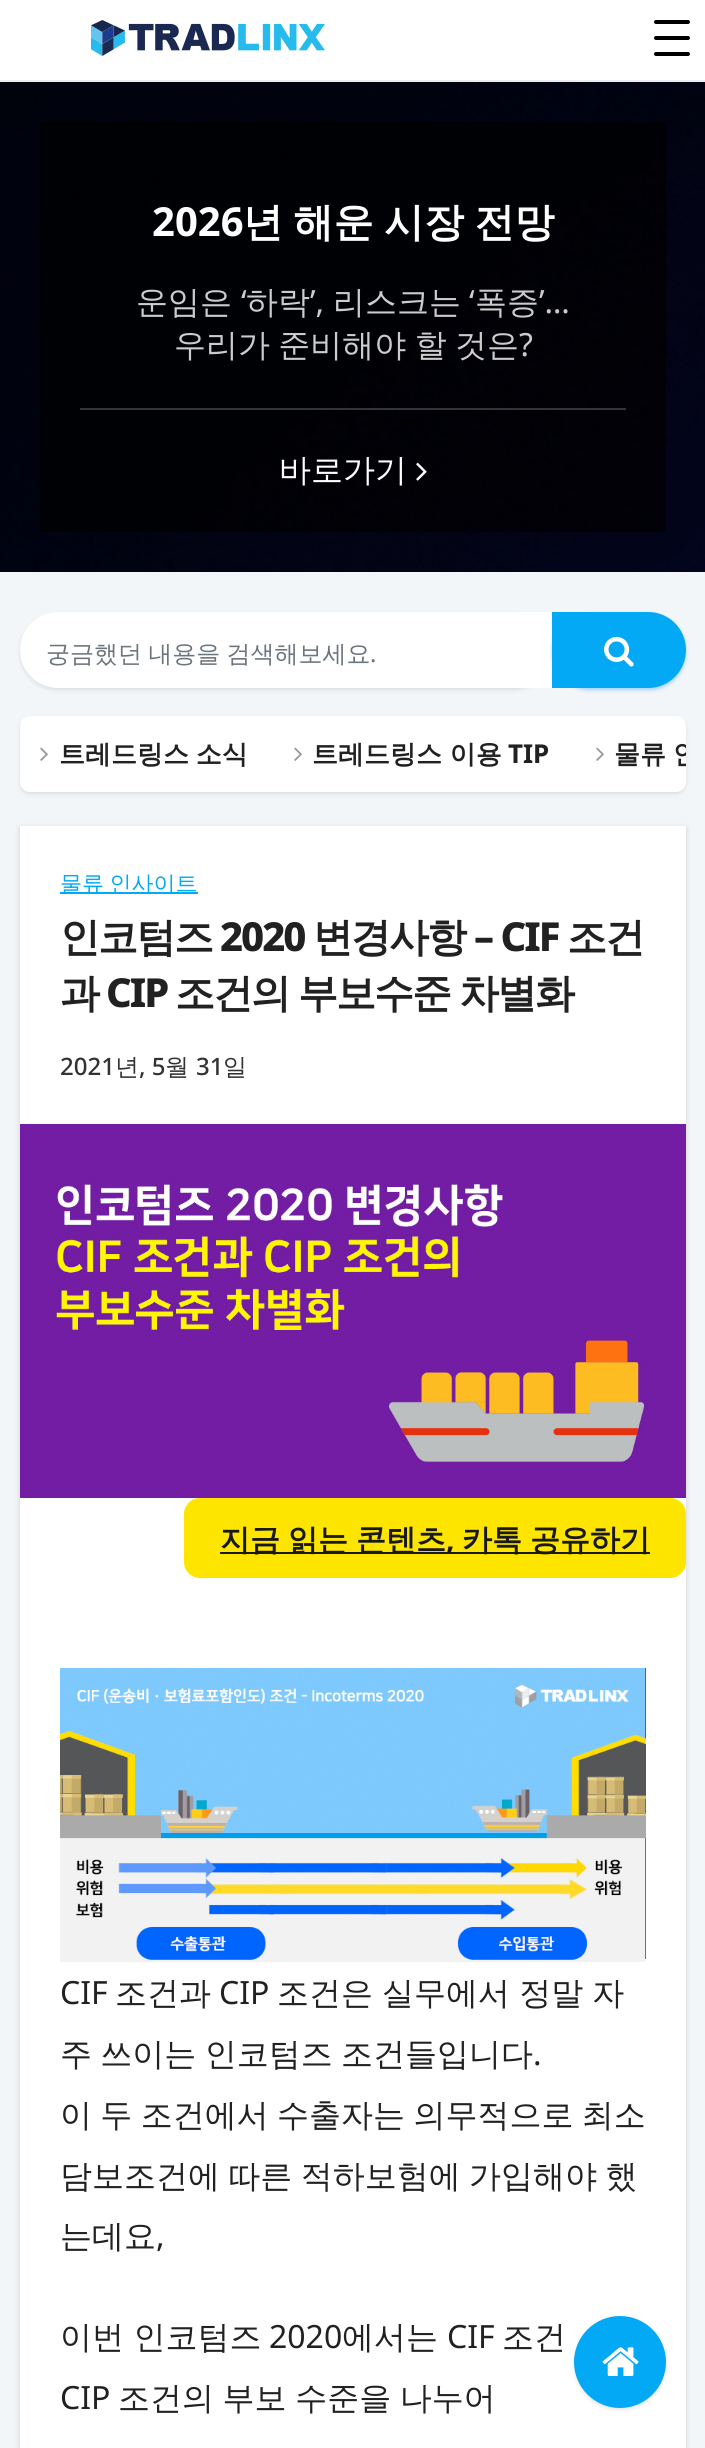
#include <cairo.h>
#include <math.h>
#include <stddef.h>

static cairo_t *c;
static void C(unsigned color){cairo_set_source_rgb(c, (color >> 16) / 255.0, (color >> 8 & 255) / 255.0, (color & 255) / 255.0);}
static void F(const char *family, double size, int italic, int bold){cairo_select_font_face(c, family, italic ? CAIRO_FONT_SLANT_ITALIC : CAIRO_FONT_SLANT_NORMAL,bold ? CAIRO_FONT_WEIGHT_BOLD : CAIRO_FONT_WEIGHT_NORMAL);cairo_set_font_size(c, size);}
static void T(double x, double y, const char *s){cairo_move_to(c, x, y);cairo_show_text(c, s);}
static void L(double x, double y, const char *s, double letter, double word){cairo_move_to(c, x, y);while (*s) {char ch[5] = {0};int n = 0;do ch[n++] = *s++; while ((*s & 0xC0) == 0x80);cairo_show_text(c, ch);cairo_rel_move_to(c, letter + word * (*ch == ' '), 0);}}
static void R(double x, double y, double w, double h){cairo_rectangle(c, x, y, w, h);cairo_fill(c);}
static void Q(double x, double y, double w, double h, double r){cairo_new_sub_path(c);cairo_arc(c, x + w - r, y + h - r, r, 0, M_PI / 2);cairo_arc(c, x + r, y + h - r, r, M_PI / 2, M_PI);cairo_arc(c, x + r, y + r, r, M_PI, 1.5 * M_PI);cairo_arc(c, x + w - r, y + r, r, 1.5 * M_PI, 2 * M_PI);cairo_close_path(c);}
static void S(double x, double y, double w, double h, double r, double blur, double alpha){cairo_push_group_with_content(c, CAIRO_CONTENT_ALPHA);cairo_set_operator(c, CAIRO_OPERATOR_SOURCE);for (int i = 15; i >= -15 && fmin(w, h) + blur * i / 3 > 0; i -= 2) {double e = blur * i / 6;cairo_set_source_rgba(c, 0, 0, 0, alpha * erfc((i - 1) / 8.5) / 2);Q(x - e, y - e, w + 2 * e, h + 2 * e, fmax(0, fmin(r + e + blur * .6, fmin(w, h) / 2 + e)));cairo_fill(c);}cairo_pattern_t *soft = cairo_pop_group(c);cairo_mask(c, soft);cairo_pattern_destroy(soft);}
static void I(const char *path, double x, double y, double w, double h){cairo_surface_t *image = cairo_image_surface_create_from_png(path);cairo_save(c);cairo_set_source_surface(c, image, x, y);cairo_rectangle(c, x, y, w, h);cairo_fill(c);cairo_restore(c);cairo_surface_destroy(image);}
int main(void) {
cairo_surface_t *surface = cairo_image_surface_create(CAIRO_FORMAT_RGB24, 705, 2448);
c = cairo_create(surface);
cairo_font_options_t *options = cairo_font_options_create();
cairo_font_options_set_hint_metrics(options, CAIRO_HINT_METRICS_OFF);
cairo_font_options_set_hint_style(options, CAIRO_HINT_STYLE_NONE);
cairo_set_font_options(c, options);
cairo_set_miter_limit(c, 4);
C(0xffffff);
cairo_paint(c);
C(0xf3f6f9);
R(0,572,705,1876);
C(0xeeeeee);
R(0,80,705,2);
I("1.png",91,20,234,36);
C(0x000000);
Q(654,20,36,4,2);
cairo_fill(c);
Q(654,36,36,4,2);
cairo_fill(c);
Q(654,52,36,4,2);
cairo_fill(c);
I("2.png",0,82,705,490);
cairo_set_source_rgba(c,0,0,0,0.7);
R(40,122,626,410);
C(0x333437);
R(80,408,546,2);
F("Noto Sans",40,0,1);
C(0xffffff);
T(152,236,"2026");
F("WenQuanYi Zen Hei",40,0,1);
L(243,236,"년 해운 시장 전망",0,-1.5);
F("WenQuanYi Zen Hei Medium",32,0,0);
C(0xcccccd);
T(136,313,"운임은");
F("Noto Sans",32,0,0);
T(241,313,"‘");
F("WenQuanYi Zen Hei Medium",32,0,0);
T(246,313,"하락");
F("Noto Sans",32,0,0);
T(310,313,"’,");
F("WenQuanYi Zen Hei Medium",32,0,0);
T(333,313,"리스크는");
F("Noto Sans",32,0,0);
T(469,313,"‘");
F("WenQuanYi Zen Hei Medium",32,0,0);
T(475,313,"폭증");
F("Noto Sans",32,0,0);
T(539,313,"’…");
F("WenQuanYi Zen Hei Medium",32,0,0);
L(174,356,"우리가 준비해야 할 것은",0,-1.25);
F("Noto Sans",32,0,0);
T(519,356,"?");
F("WenQuanYi Zen Hei Medium",32,0,0);
C(0xffffff);
T(279,481,"바로가기");
I("3.png",416,462,11,19);
C(0x000000);
S(20,614,532,76,38,2,.1);
C(0xffffff);
cairo_new_path(c);
cairo_move_to(c,58,613);
cairo_line_to(c,551,613);
cairo_line_to(c,551,687);
cairo_line_to(c,58,687);
cairo_curve_to(c,37.5,687,21,670.5,21,650);
cairo_curve_to(c,21,629.5,37.5,613,58,613);
cairo_close_path(c);
cairo_fill_preserve(c);
cairo_stroke(c);
F("WenQuanYi Zen Hei Medium",24,0,0);
C(0x6c757d);
L(46,662,"궁금했던 내용을 검색해보세요",0,-1);
F("Noto Sans",24,0,0);
T(370,662,".");
C(0x50a9f5);
S(552,614,134,76,38,2,.5);
C(0x03a9f4);
cairo_new_path(c);
cairo_move_to(c,554,614);
cairo_line_to(c,648,614);
cairo_curve_to(c,668,614,684,630,684,650);
cairo_curve_to(c,684,670,668,686,648,686);
cairo_line_to(c,554,686);
cairo_close_path(c);
cairo_fill_preserve(c);
cairo_set_line_width(c,4);
cairo_stroke(c);
I("4.png",604,636,30,31);
C(0x000000);
S(20,718,666,76,10,2,.1);
C(0xffffff);
Q(20,716,666,76,10);
cairo_fill(c);
I("5.png",40,747,8,14);
F("WenQuanYi Zen Hei",26,0,1);
C(0x212121);
L(59,763,"트레드링스 소식",0,-1);
I("5.png",294,747,8,14);
T(312,763,"트레드링스 이용");
F("Noto Sans",26,0,1);
T(508,763,"TIP");
I("5.png",596,747,8,14);
cairo_save(c);
Q(20,716,666,76,10);
cairo_clip(c);
F("WenQuanYi Zen Hei",26,0,1);
L(614,763,"물류 인",0,-1);
cairo_restore(c);
C(0x000000);
S(20,828,666,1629,0,3,.15);
C(0xffffff);
R(20,826,666,1622);
C(0x000000);
S(574,2318,92,92,46,2,.1);
C(0x03a9f4);
cairo_arc(c,620,2362,46,0,2 * M_PI);
cairo_fill(c);
I("6.png",602,2347,37,29);
R(60,892,138,2);
F("WenQuanYi Zen Hei Medium",22,0,0);
L(60,891,"물류 인사이트",0,-1);
F("WenQuanYi Zen Hei",40,0,1);
C(0x212121);
L(60,951,"인코텀즈",-2,0);
F("Noto Sans ExtraBold",40,0,0);
L(220,951,"2020",-2,0);
F("WenQuanYi Zen Hei",40,0,1);
L(313,951,"변경사항",-2,0);
F("Noto Sans ExtraBold",40,0,0);
L(474,951,"– CIF",-2,0);
F("WenQuanYi Zen Hei",40,0,1);
L(567,951,"조건",-2,0);
L(60,1007,"과",-2,0);
F("Noto Sans ExtraBold",40,0,0);
L(106,1007,"CIP",-2,0);
F("WenQuanYi Zen Hei",40,0,1);
L(175,1007,"조건의 부보수준 차별화",-2,-1);
F("Noto Sans Medium",24,0,0);
C(0x333333);
T(60,1075,"2021");
F("WenQuanYi Zen Hei Medium",24,0,0);
T(115,1075,"년");
F("Noto Sans Medium",24,0,0);
T(139,1075,", 5");
F("WenQuanYi Zen Hei Medium",24,0,0);
T(165,1075,"월");
F("Noto Sans Medium",24,0,0);
T(196,1075,"31");
F("WenQuanYi Zen Hei Medium",24,0,0);
T(223,1075,"일");
I("7.png",20,1124,666,374);
C(0xfee500);
Q(184,1498,502,80,16);
cairo_fill(c);
C(0x191919);
R(220,1552,430,2);
F("WenQuanYi Zen Hei",30,0,1);
L(220,1550,"지금 읽는 콘텐츠",0,-1);
F("Noto Sans",30,0,1);
T(446,1550,",");
F("WenQuanYi Zen Hei",30,0,1);
L(462,1550,"카톡 공유하기",0,-1);
I("8.png",60,1668,586,294);
F("Noto Sans",32,0,0);
C(0x212121);
T(60,2004,"CIF");
F("WenQuanYi Zen Hei Medium",32,0,0);
T(115,2004,"조건과");
F("Noto Sans",32,0,0);
T(219,2004,"CIP");
F("WenQuanYi Zen Hei Medium",32,0,0);
L(277,2004,"조건은 실무에서 정말 자",0,-.5);
L(60,2065,"주 쓰이는 인코텀즈 조건들입니다",0,-1.25);
F("Noto Sans",32,0,0);
T(533,2065,".");
F("WenQuanYi Zen Hei Medium",32,0,0);
L(60,2126,"이 두 조건에서 수출자는 의무적으로 최소",0,-1.25);
L(60,2187,"담보조건에 따른 적하보험에 가입해야 했",0,-1.25);
T(60,2247,"는데요");
F("Noto Sans",32,0,0);
T(156,2247,",");
F("WenQuanYi Zen Hei Medium",32,0,0);
T(60,2348,"이번 인코텀즈");
F("Noto Sans",32,0,0);
T(269,2348,"2020");
F("WenQuanYi Zen Hei Medium",32,0,0);
T(342,2348,"에서는");
F("Noto Sans",32,0,0);
T(447,2348,"CIF");
F("WenQuanYi Zen Hei Medium",32,0,0);
T(502,2348,"조건");
F("Noto Sans",32,0,0);
T(60,2409,"CIP");
F("WenQuanYi Zen Hei Medium",32,0,0);
L(118,2409,"조건의 부보 수준을 나누어",0,-1);
cairo_surface_write_to_png(surface, "o.png");
cairo_font_options_destroy(options);
cairo_destroy(c);
cairo_surface_destroy(surface);
return 0;
}
